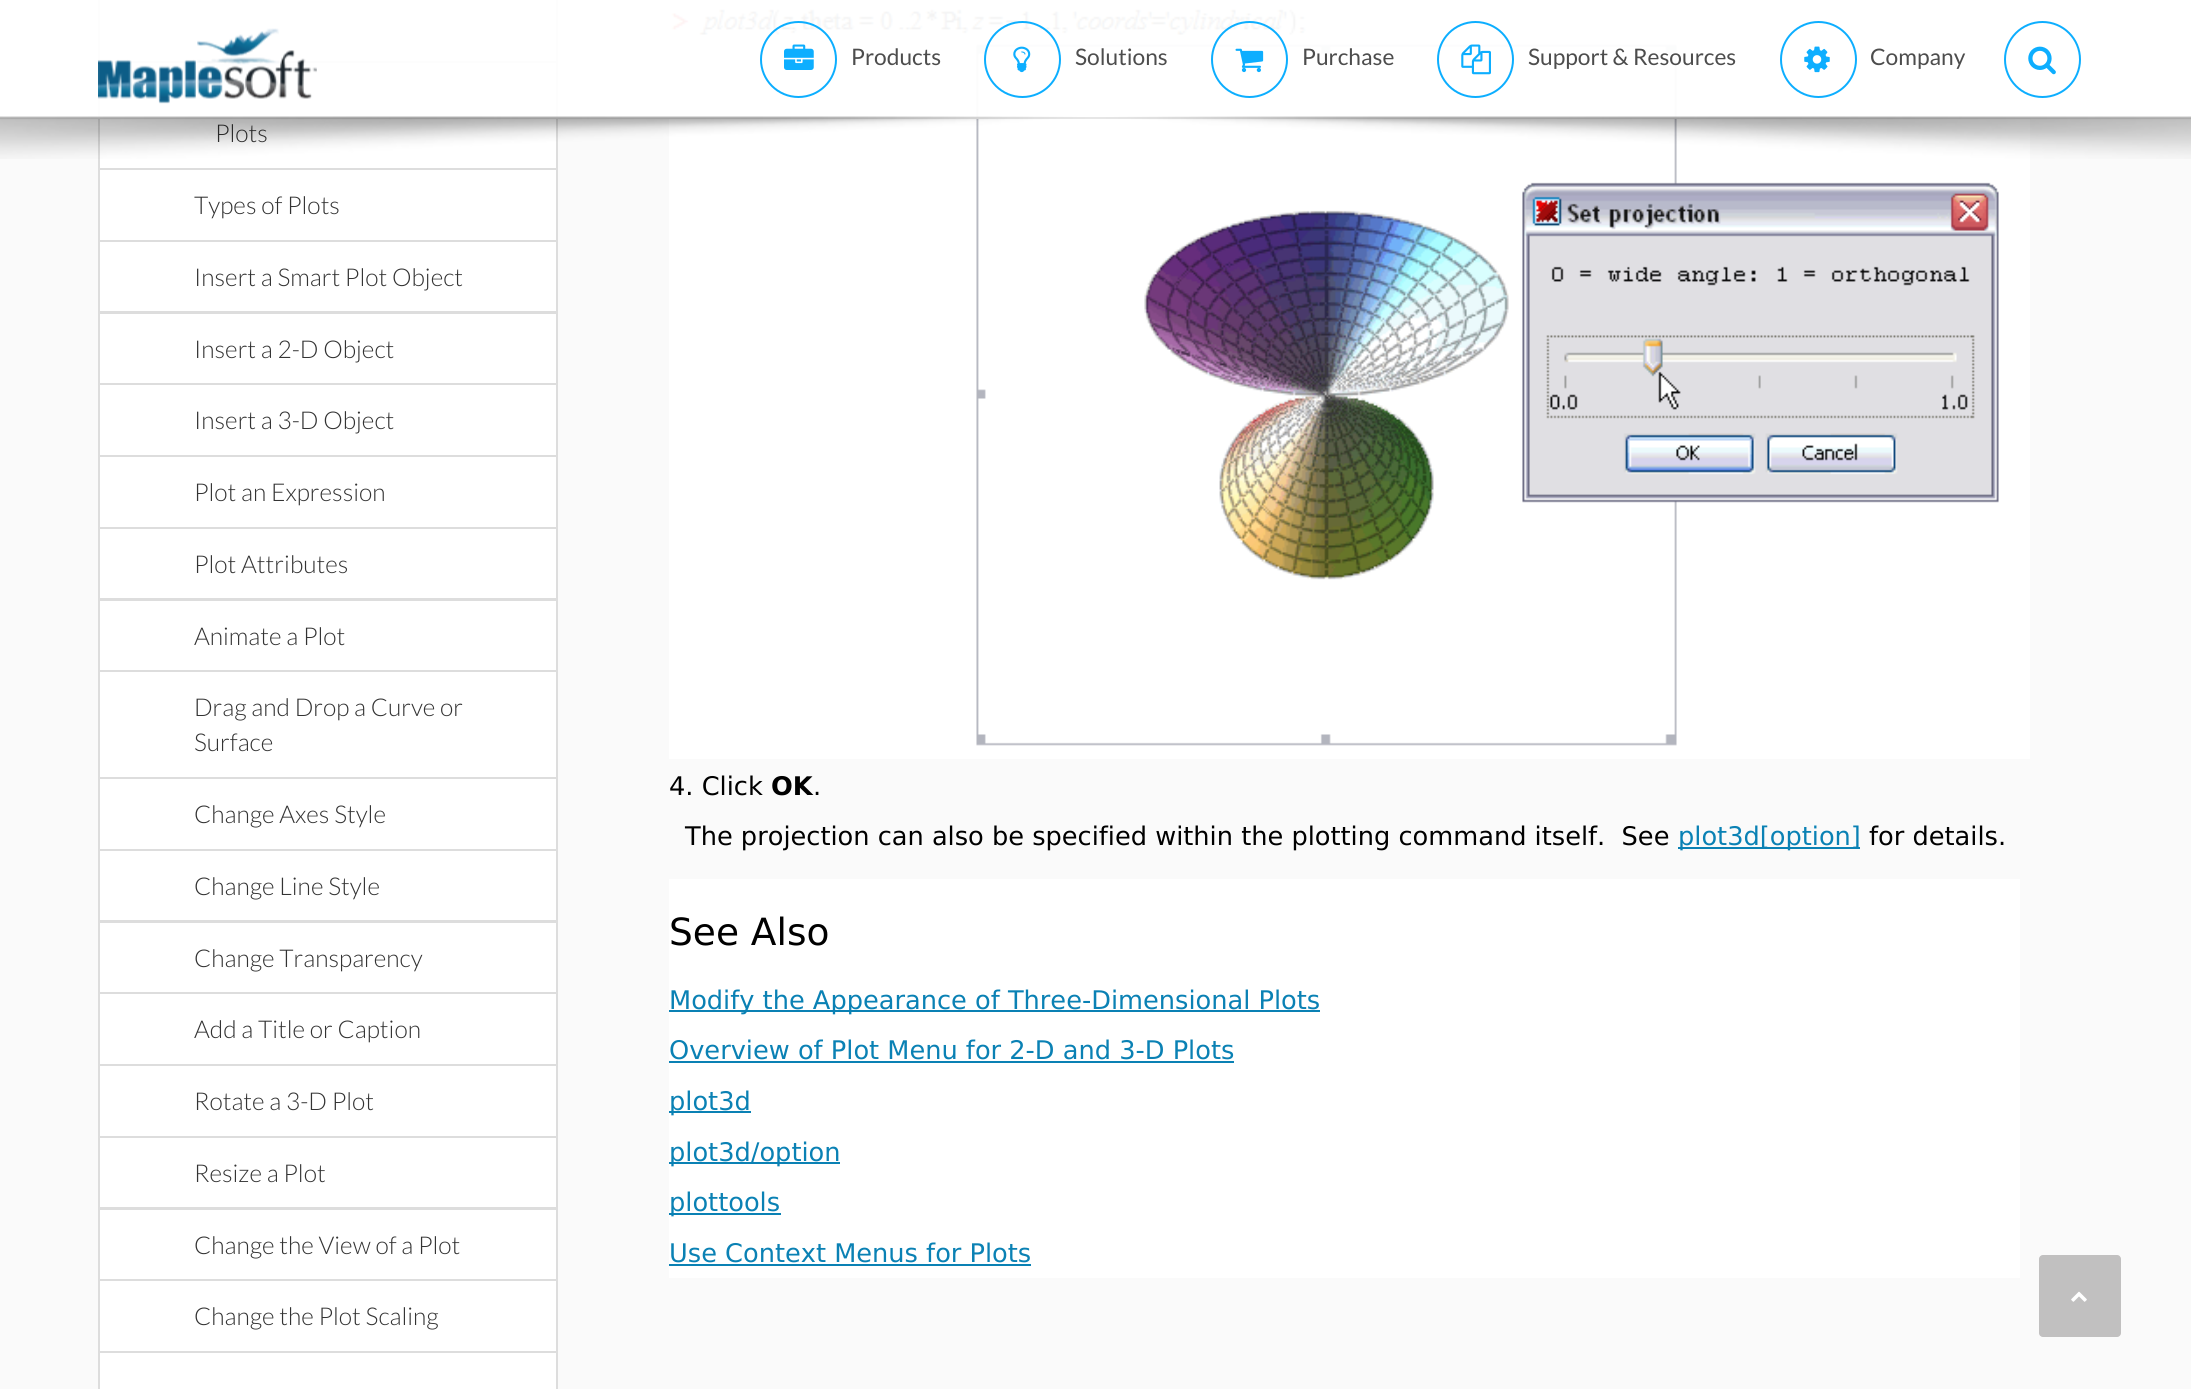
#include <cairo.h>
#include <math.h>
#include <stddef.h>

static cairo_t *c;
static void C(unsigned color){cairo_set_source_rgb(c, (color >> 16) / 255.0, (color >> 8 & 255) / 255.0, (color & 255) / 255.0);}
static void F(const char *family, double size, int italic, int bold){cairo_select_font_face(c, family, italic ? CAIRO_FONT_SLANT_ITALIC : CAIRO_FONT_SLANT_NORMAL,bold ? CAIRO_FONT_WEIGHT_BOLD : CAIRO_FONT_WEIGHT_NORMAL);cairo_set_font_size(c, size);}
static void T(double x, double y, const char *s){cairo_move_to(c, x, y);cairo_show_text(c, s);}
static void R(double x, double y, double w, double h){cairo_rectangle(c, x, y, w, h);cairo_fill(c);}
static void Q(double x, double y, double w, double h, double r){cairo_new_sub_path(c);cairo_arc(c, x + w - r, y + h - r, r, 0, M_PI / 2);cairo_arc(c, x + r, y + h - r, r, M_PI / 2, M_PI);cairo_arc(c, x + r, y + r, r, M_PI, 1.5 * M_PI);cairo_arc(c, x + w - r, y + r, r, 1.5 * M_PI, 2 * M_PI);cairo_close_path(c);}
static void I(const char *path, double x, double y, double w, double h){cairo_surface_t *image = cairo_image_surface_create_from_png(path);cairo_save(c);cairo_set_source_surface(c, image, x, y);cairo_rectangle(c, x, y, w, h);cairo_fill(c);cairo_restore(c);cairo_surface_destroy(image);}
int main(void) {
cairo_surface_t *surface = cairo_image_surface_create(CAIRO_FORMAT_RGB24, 2191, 1389);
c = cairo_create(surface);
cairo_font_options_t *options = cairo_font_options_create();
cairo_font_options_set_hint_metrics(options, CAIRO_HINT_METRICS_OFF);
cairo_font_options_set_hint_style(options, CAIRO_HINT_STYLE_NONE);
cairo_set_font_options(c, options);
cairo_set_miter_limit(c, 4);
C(0xfafafa);
cairo_paint(c);
C(0xffffff);
cairo_rectangle(c,99,-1,458,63);
cairo_fill_preserve(c);
C(0xdddddd);
cairo_stroke(c);
C(0xffffff);
cairo_rectangle(c,99,62,458,107);
cairo_fill_preserve(c);
C(0xdddddd);
cairo_stroke(c);
I("9.png",669,0,1361,759);
cairo_set_source_rgba(c,1,1,1,0.95);
R(0,0,2191,119);
cairo_set_source_rgba(c,0.898,0.898,0.898,0.95);
R(0,117,2191,2);
I("1.png",98,28,219,76);
cairo_arc(c,798.5,59.5,37.5,0,2 * M_PI);
cairo_set_source_rgba(c,0,0.667,1,0.95);
cairo_stroke(c);
I("2.png",784,44,30,26);
F("Lato",22.75,0,0);
C(0x4d4d4d);
T(851,65,"Products");
cairo_new_path(c);
cairo_arc(c,1022.5,59.5,37.5,0,2 * M_PI);
cairo_set_source_rgba(c,0,0.667,1,0.95);
cairo_stroke(c);
I("3.png",1013,46,18,27);
C(0x4d4d4d);
T(1075,65,"Solutions");
cairo_new_path(c);
cairo_arc(c,1249.5,59.5,37.5,0,2 * M_PI);
cairo_set_source_rgba(c,0,0.667,1,0.95);
cairo_stroke(c);
I("4.png",1235,48,29,25);
C(0x4d4d4d);
T(1302,65,"Purchase");
cairo_new_path(c);
cairo_arc(c,1475.5,59.5,37.5,0,2 * M_PI);
cairo_set_source_rgba(c,0,0.667,1,0.95);
cairo_stroke(c);
I("5.png",1461,44,30,31);
C(0x4d4d4d);
T(1528,65,"Support & Resources");
cairo_new_path(c);
cairo_arc(c,1818.5,59.5,37.5,0,2 * M_PI);
C(0x0daeff);
cairo_stroke(c);
I("6.png",1804,46,26,27);
C(0x4d4d4d);
T(1870,65,"Company");
cairo_new_path(c);
cairo_arc(c,2042.5,59.5,37.5,0,2 * M_PI);
C(0x0daeff);
cairo_stroke(c);
I("7.png",2028,46,28,29);
F("Lato Light",24.5,0,0);
C(0x333333);
T(215,142,"Plots");
I("8.png",0,116,2191,43);
C(0xffffff);
cairo_rectangle(c,99,169,458,72);
cairo_fill_preserve(c);
C(0xdddddd);
cairo_stroke(c);
C(0x333333);
T(194,214,"Types of Plots");
C(0xffffff);
cairo_rectangle(c,99,241,458,71);
cairo_fill_preserve(c);
C(0xdddddd);
cairo_stroke(c);
C(0x333333);
T(194,286,"Insert a Smart Plot Object");
C(0xffffff);
cairo_rectangle(c,99,313,458,71);
cairo_fill_preserve(c);
C(0xdddddd);
cairo_stroke(c);
C(0x333333);
T(194,358,"Insert a 2-D Object");
C(0xffffff);
cairo_rectangle(c,99,384,458,72);
cairo_fill_preserve(c);
C(0xdddddd);
cairo_stroke(c);
C(0x333333);
T(194,429,"Insert a 3-D Object");
C(0xffffff);
cairo_rectangle(c,99,456,458,72);
cairo_fill_preserve(c);
C(0xdddddd);
cairo_stroke(c);
C(0x333333);
T(194,501,"Plot an Expression");
C(0xffffff);
cairo_rectangle(c,99,528,458,71);
cairo_fill_preserve(c);
C(0xdddddd);
cairo_stroke(c);
C(0x333333);
T(194,573,"Plot Attributes");
C(0xffffff);
cairo_rectangle(c,99,600,458,71);
cairo_fill_preserve(c);
C(0xdddddd);
cairo_stroke(c);
C(0x333333);
T(194,645,"Animate a Plot");
C(0xffffff);
cairo_rectangle(c,99,671,458,107);
cairo_fill_preserve(c);
C(0xdddddd);
cairo_stroke(c);
C(0x333333);
T(194,716,"Drag and Drop a Curve or");
T(194,751,"Surface");
C(0xffffff);
cairo_rectangle(c,99,778,458,72);
cairo_fill_preserve(c);
C(0xdddddd);
cairo_stroke(c);
C(0x333333);
T(194,823,"Change Axes Style");
C(0xffffff);
cairo_rectangle(c,99,850,458,71);
cairo_fill_preserve(c);
C(0xdddddd);
cairo_stroke(c);
C(0x333333);
T(194,895,"Change Line Style");
C(0xffffff);
cairo_rectangle(c,99,922,458,71);
cairo_fill_preserve(c);
C(0xdddddd);
cairo_stroke(c);
C(0x333333);
T(194,967,"Change Transparency");
C(0xffffff);
cairo_rectangle(c,99,993,458,72);
cairo_fill_preserve(c);
C(0xdddddd);
cairo_stroke(c);
C(0x333333);
T(194,1038,"Add a Title or Caption");
C(0xffffff);
cairo_rectangle(c,99,1065,458,72);
cairo_fill_preserve(c);
C(0xdddddd);
cairo_stroke(c);
C(0x333333);
T(194,1110,"Rotate a 3-D Plot");
C(0xffffff);
cairo_rectangle(c,99,1137,458,71);
cairo_fill_preserve(c);
C(0xdddddd);
cairo_stroke(c);
C(0x333333);
T(194,1182,"Resize a Plot");
C(0xffffff);
cairo_rectangle(c,99,1209,458,71);
cairo_fill_preserve(c);
C(0xdddddd);
cairo_stroke(c);
C(0x333333);
T(194,1254,"Change the View of a Plot");
C(0xffffff);
cairo_rectangle(c,99,1280,458,72);
cairo_fill_preserve(c);
C(0xdddddd);
cairo_stroke(c);
C(0x333333);
T(194,1325,"Change the Plot Scaling");
C(0xffffff);
cairo_rectangle(c,99,1352,458,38);
cairo_fill_preserve(c);
C(0xdddddd);
cairo_stroke(c);
F("DejaVu Sans",25.65,0,0);
C(0x000000);
T(669,795,"4. Click");
F("DejaVu Sans",25.65,0,1);
T(771,795,"OK");
F("DejaVu Sans",25.65,0,0);
T(813,795,".");
T(685,845,"The projection can also be specified within the plotting command itself.  See");
C(0x0a81b4);
R(1678,847,182,2);
T(1678,845,"plot3d[option]");
C(0x000000);
T(1869,845,"for details.");
C(0xffffff);
R(669,879,1351,399);
F("DejaVu Sans",37.5,0,0);
C(0x000000);
T(669,945,"See Also");
C(0x0a81b4);
R(669,1010,651,2);
F("DejaVu Sans",25.65,0,0);
T(669,1009,"Modify the Appearance of Three-Dimensional Plots");
T(669,1059,"Overview of Plot Menu for 2-D and 3-D Plots");
R(669,1061,565,2);
R(669,1111,82,2);
T(669,1110,"plot3d");
R(669,1162,171,2);
T(669,1161,"plot3d/option");
R(669,1213,112,2);
T(669,1211,"plottools");
T(669,1262,"Use Context Menus for Plots");
R(669,1264,362,2);
C(0xc1c0c0);
Q(2039,1255,82,82,4);
cairo_fill(c);
I("10.png",2071,1291,16,11);
cairo_surface_write_to_png(surface, "o.png");
cairo_font_options_destroy(options);
cairo_destroy(c);
cairo_surface_destroy(surface);
return 0;
}
